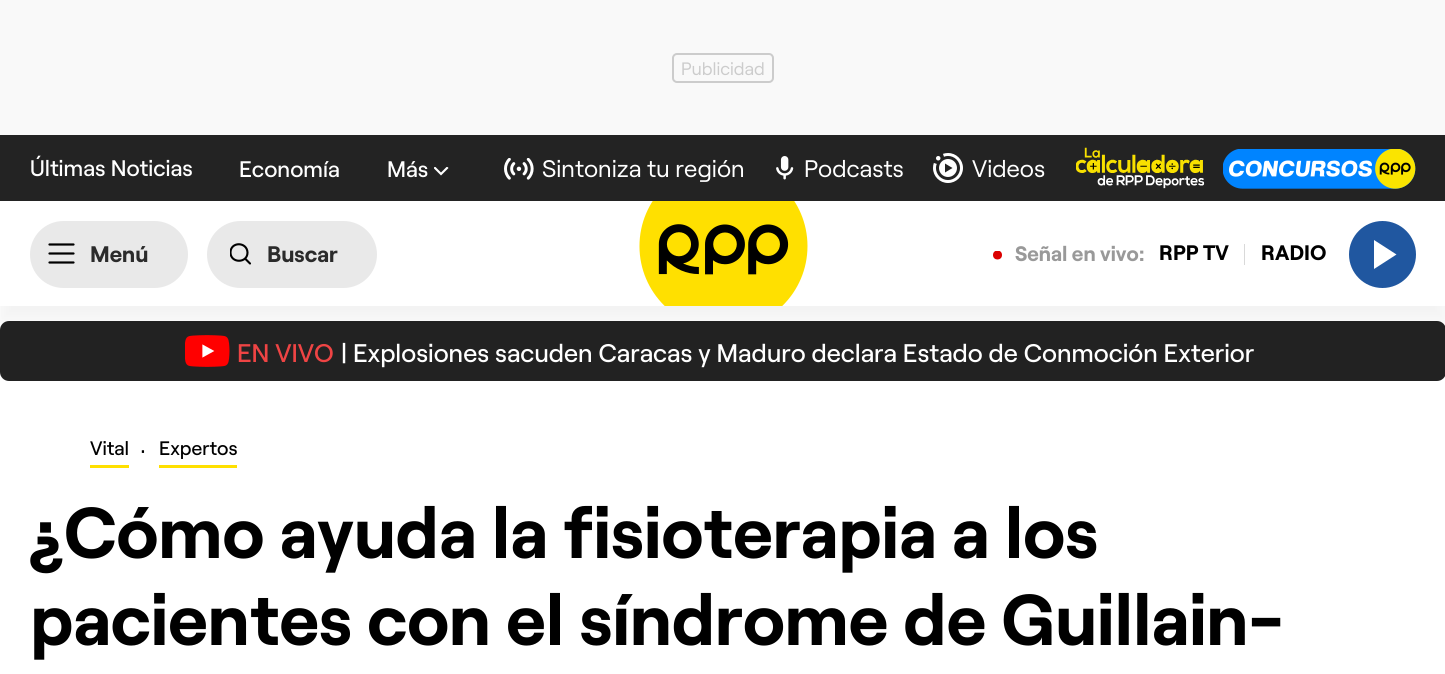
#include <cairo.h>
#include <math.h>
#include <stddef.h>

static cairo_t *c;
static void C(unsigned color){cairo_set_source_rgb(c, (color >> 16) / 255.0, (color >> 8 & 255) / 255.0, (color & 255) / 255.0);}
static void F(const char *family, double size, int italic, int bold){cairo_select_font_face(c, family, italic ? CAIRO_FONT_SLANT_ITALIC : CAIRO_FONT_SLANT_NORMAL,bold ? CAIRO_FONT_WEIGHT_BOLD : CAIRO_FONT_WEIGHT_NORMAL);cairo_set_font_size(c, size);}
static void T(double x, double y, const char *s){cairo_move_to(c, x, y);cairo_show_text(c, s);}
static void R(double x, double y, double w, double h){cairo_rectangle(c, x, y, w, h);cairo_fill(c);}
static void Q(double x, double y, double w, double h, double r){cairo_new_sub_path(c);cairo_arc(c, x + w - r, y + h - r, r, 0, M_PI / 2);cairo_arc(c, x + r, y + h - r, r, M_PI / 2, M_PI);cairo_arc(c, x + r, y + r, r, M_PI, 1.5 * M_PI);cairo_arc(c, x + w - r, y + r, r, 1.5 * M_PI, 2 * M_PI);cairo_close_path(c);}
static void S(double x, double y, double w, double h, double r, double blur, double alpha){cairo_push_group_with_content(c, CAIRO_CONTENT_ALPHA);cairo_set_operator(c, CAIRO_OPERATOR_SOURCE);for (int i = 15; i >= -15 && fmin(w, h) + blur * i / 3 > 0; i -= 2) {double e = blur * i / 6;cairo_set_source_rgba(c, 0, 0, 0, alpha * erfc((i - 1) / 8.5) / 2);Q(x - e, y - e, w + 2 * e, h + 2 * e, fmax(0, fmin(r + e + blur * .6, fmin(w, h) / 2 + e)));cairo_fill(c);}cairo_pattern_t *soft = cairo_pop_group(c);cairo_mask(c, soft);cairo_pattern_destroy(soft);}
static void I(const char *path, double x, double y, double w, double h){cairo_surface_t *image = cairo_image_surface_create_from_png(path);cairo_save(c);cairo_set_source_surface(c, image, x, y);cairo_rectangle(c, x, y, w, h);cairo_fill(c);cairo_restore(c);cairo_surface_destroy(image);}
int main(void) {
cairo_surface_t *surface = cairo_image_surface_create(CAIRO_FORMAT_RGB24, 1445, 674);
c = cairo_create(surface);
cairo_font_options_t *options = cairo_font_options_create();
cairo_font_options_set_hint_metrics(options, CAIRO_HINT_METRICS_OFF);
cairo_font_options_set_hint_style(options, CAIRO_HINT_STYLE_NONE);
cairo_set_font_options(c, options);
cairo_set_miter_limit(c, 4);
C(0xffffff);
cairo_paint(c);
C(0xf9f9f9);
R(0,0,1445,135);
Q(673,54,100,28,4);
C(0xcccccc);
cairo_stroke(c);
F("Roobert",18,0,0);
T(681,75,"Publicidad");
C(0x232323);
R(0,135,1445,66);
F("Roobert Medium",22.5,0,0);
C(0xffffff);
T(30,176,"Últimas Noticias");
T(239,177,"Economía");
T(387,177,"Más");
I("1.png",434,167,15,9);
I("2.png",504,158,30,22);
F("Roobert",24,0,0);
T(542,177,"Sintoniza tu región");
I("3.png",776,156,18,24);
T(804,177,"Podcasts");
I("4.png",933,153,30,30);
T(972,177,"Videos");
I("5.png",1076,147,129,42);
I("6.png",1223,149,193,40);
C(0x222222);
Q(0,321,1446,60,9);
cairo_fill(c);
I("8.png",185,335,45,32);
cairo_save(c);
cairo_rectangle(c,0,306,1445,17);
cairo_clip(c);
C(0x000000);
S(0,216,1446,105,0,7.5,.05);
cairo_restore(c);
C(0xe9e9e9);
Q(30,221,158,67,33.5);
cairo_fill(c);
cairo_new_path(c);
cairo_move_to(c,49.5,244.5);
cairo_line_to(c,73.5,244.5);
cairo_move_to(c,49.5,253.5);
cairo_line_to(c,73.5,253.5);
cairo_move_to(c,49.5,262.5);
cairo_line_to(c,73.5,262.5);
C(0x000000);
cairo_set_line_width(c,2.2);
cairo_set_line_cap(c,CAIRO_LINE_CAP_ROUND);
cairo_set_line_join(c,CAIRO_LINE_JOIN_ROUND);
cairo_stroke(c);
F("Roobert",22.5,0,1);
C(0x2b2b2b);
T(90,262,"Menú");
C(0xe9e9e9);
Q(207,221,170,67,33.5);
cairo_fill(c);
cairo_save(c);
cairo_rectangle(c,230,243,22,23);
cairo_clip(c);
cairo_new_path(c);
cairo_move_to(c,245.5,259);
cairo_line_to(c,250,263.5);
cairo_move_to(c,230.5,252.5);
cairo_curve_to(c,230.5,263.5,247.5,263.5,247.5,252.5);
cairo_curve_to(c,247,241.5,230.5,241.5,230.5,252.5);
cairo_close_path(c);
C(0x000000);
cairo_set_line_width(c,2.1);
cairo_stroke(c);
cairo_restore(c);
C(0x2b2b2b);
T(267,262,"Buscar");
I("7.png",639,201,169,105);
cairo_save(c);
cairo_rectangle(c,993,251,9,9);
cairo_clip(c);
C(0xdb0000);
cairo_arc(c,997.5,255,4.5,0,2 * M_PI);
cairo_fill(c);
cairo_restore(c);
F("Roobert",21,0,1);
C(0x999999);
T(1015,261,"Señal en vivo:");
C(0x000000);
T(1159,260,"RPP TV");
C(0xd9d9d9);
R(1244,244,1,21);
C(0x000000);
T(1261,260,"RADIO");
C(0x2057a0);
cairo_new_path(c);
cairo_arc(c,1382.5,254.5,33.5,0,2 * M_PI);
cairo_fill(c);
C(0xffffff);
cairo_new_path(c);
cairo_move_to(c,1374,240);
cairo_line_to(c,1374,269);
cairo_line_to(c,1396.5,254.5);
cairo_close_path(c);
cairo_fill(c);
F("Roobert Medium",25.5,0,0);
C(0xef4444);
T(237,362,"EN VIVO");
C(0xffffff);
T(341,362,"| Explosiones sacuden Caracas y Maduro declara Estado de Conmoción Exterior");
C(0xffe000);
R(90,465,39,3);
F("Roobert Medium",19.5,0,0);
C(0x000000);
T(90,455,"Vital");
F("Roobert",24,0,0);
T(141,460,"·");
C(0xffe000);
R(159,465,78,3);
F("Roobert Medium",19.5,0,0);
C(0x000000);
T(159,455,"Expertos");
F("Roobert",72,0,1);
T(30,558,"¿Cómo ayuda la fisioterapia a los");
T(30,645,"pacientes con el síndrome de Guillain-");
cairo_surface_write_to_png(surface, "o.png");
cairo_font_options_destroy(options);
cairo_destroy(c);
cairo_surface_destroy(surface);
return 0;
}
